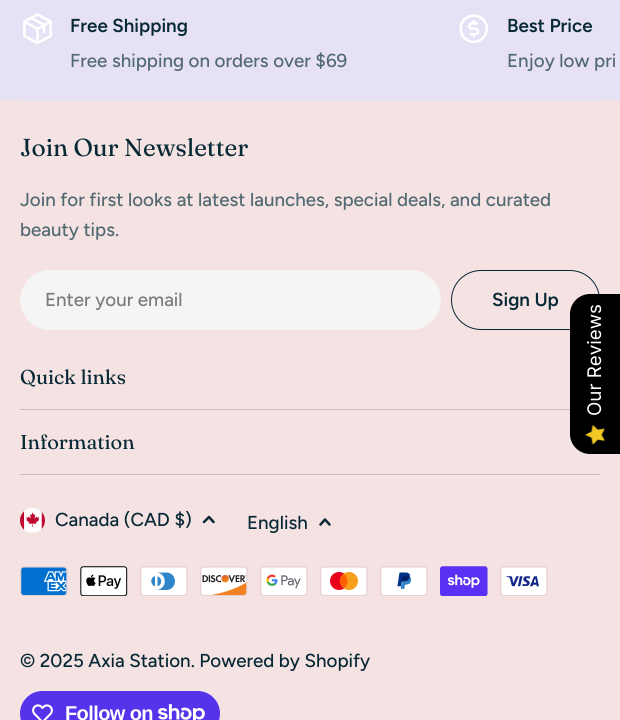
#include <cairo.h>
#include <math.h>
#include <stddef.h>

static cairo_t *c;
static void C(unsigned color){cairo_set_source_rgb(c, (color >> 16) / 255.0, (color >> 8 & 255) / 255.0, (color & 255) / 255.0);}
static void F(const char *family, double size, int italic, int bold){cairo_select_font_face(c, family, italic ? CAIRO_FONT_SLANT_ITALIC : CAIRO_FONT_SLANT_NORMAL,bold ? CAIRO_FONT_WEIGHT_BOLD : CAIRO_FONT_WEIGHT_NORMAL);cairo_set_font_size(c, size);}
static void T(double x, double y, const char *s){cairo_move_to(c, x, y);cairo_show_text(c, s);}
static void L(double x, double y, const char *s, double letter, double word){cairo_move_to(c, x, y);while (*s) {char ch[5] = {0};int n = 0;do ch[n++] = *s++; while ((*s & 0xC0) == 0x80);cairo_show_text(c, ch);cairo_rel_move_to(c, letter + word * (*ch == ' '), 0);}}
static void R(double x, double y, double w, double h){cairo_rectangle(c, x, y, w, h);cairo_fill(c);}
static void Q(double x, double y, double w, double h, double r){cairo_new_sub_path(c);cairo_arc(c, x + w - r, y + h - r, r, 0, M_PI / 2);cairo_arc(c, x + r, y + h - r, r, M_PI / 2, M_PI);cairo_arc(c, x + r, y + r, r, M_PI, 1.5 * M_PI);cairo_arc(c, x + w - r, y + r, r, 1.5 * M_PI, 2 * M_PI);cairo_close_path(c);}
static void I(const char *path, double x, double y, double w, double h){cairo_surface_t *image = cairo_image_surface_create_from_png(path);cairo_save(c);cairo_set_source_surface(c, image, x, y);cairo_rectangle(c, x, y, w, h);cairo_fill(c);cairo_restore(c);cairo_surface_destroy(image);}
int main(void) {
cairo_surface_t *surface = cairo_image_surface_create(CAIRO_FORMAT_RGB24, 620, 720);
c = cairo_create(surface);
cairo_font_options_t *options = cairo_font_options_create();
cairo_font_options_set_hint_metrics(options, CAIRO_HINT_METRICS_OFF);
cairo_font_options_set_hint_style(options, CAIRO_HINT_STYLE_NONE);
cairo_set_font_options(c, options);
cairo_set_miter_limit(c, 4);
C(0xe7e1f5);
cairo_paint(c);
I("1.png",23,13,29,32);
F("Figtree SemiBold",18.75,0,0);
C(0x072835);
T(70,32,"Free Shipping");
F("Figtree Medium",18.75,0,0);
C(0x516971);
T(70,67,"Free shipping on orders over $69");
I("2.png",459,14,29,29);
F("Figtree SemiBold",18.75,0,0);
C(0x072835);
T(507,32,"Best Price");
F("Figtree Medium",18.75,0,0);
C(0x516971);
T(507,67,"Enjoy low pri");
C(0xf5e2e2);
R(0,100,620,620);
C(0xe6e9eb);
R(20,100,580,1);
F("Fraunces",24.5,0,0);
C(0x072835);
T(20,156,"Join Our Newsletter");
F("Figtree Medium",18.75,0,0);
C(0x516971);
T(20,206,"Join for first looks at latest launches, special deals, and curated");
T(20,236,"beauty tips.");
C(0xf5f5f5);
Q(20,270,421,60,30);
cairo_fill(c);
C(0x7b7b7b);
T(45,306,"Enter your email");
Q(451.5,270.5,148,59,29.5);
C(0x072835);
cairo_set_line_width(c,1);
cairo_stroke(c);
F("Figtree SemiBold",18.75,0,0);
T(492,306,"Sign Up");
C(0xc5bdbf);
R(20,409,550,1);
F("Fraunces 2",20,0,0);
C(0x072835);
T(20,384,"Quick links");
C(0xc5bdbf);
R(20,474,580,1);
C(0x072835);
T(20,449,"Information");
I("3.png",20,508,25,25);
F("Figtree Medium",18.75,0,0);
T(55,526,"Canada (CAD $)");
cairo_new_path(c);
cairo_move_to(c,204,522);
cairo_line_to(c,209,517);
cairo_line_to(c,213.5,522);
cairo_set_line_width(c,2.5);
cairo_set_line_cap(c,CAIRO_LINE_CAP_ROUND);
cairo_set_line_join(c,CAIRO_LINE_JOIN_ROUND);
cairo_stroke(c);
T(247,529,"English");
cairo_new_path(c);
cairo_move_to(c,320.5,524.5);
cairo_line_to(c,325,519.5);
cairo_line_to(c,329.5,524.5);
cairo_stroke(c);
I("4.png",20,566,48,30);
I("5.png",80,566,48,30);
I("6.png",140,566,48,30);
I("7.png",200,566,48,30);
I("8.png",260,566,48,30);
I("9.png",320,566,48,30);
I("10.png",380,566,48,30);
I("11.png",440,566,48,30);
I("12.png",500,566,48,30);
T(20,667,"© 2025 Axia Station. Powered by Shopify");
C(0x5433eb);
Q(20,691,200,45,22.5);
cairo_fill(c);
I("13.png",32,704,21,16);
F("Liberation Sans",20,0,1);
C(0xffffff);
L(65,720,"Follow on",-.6,0);
I("14.png",158,704,47,16);
C(0x000000);
cairo_new_path(c);
cairo_move_to(c,570,434);
cairo_line_to(c,570,314);
cairo_curve_to(c,570,303,579,294,590,294);
cairo_line_to(c,620,294);
cairo_line_to(c,620,454);
cairo_line_to(c,590,454);
cairo_curve_to(c,579,454,570,445,570,434);
cairo_close_path(c);
cairo_fill(c);
F("Inter",18.75,0,0);
C(0xffffff);
cairo_save(c);
cairo_translate(c,601,416);
cairo_rotate(c,-90 * M_PI / 180);
T(0,0,"Our Reviews");
cairo_restore(c);
I("15.png",585,425,20,20);
cairo_surface_write_to_png(surface, "o.png");
cairo_font_options_destroy(options);
cairo_destroy(c);
cairo_surface_destroy(surface);
return 0;
}
